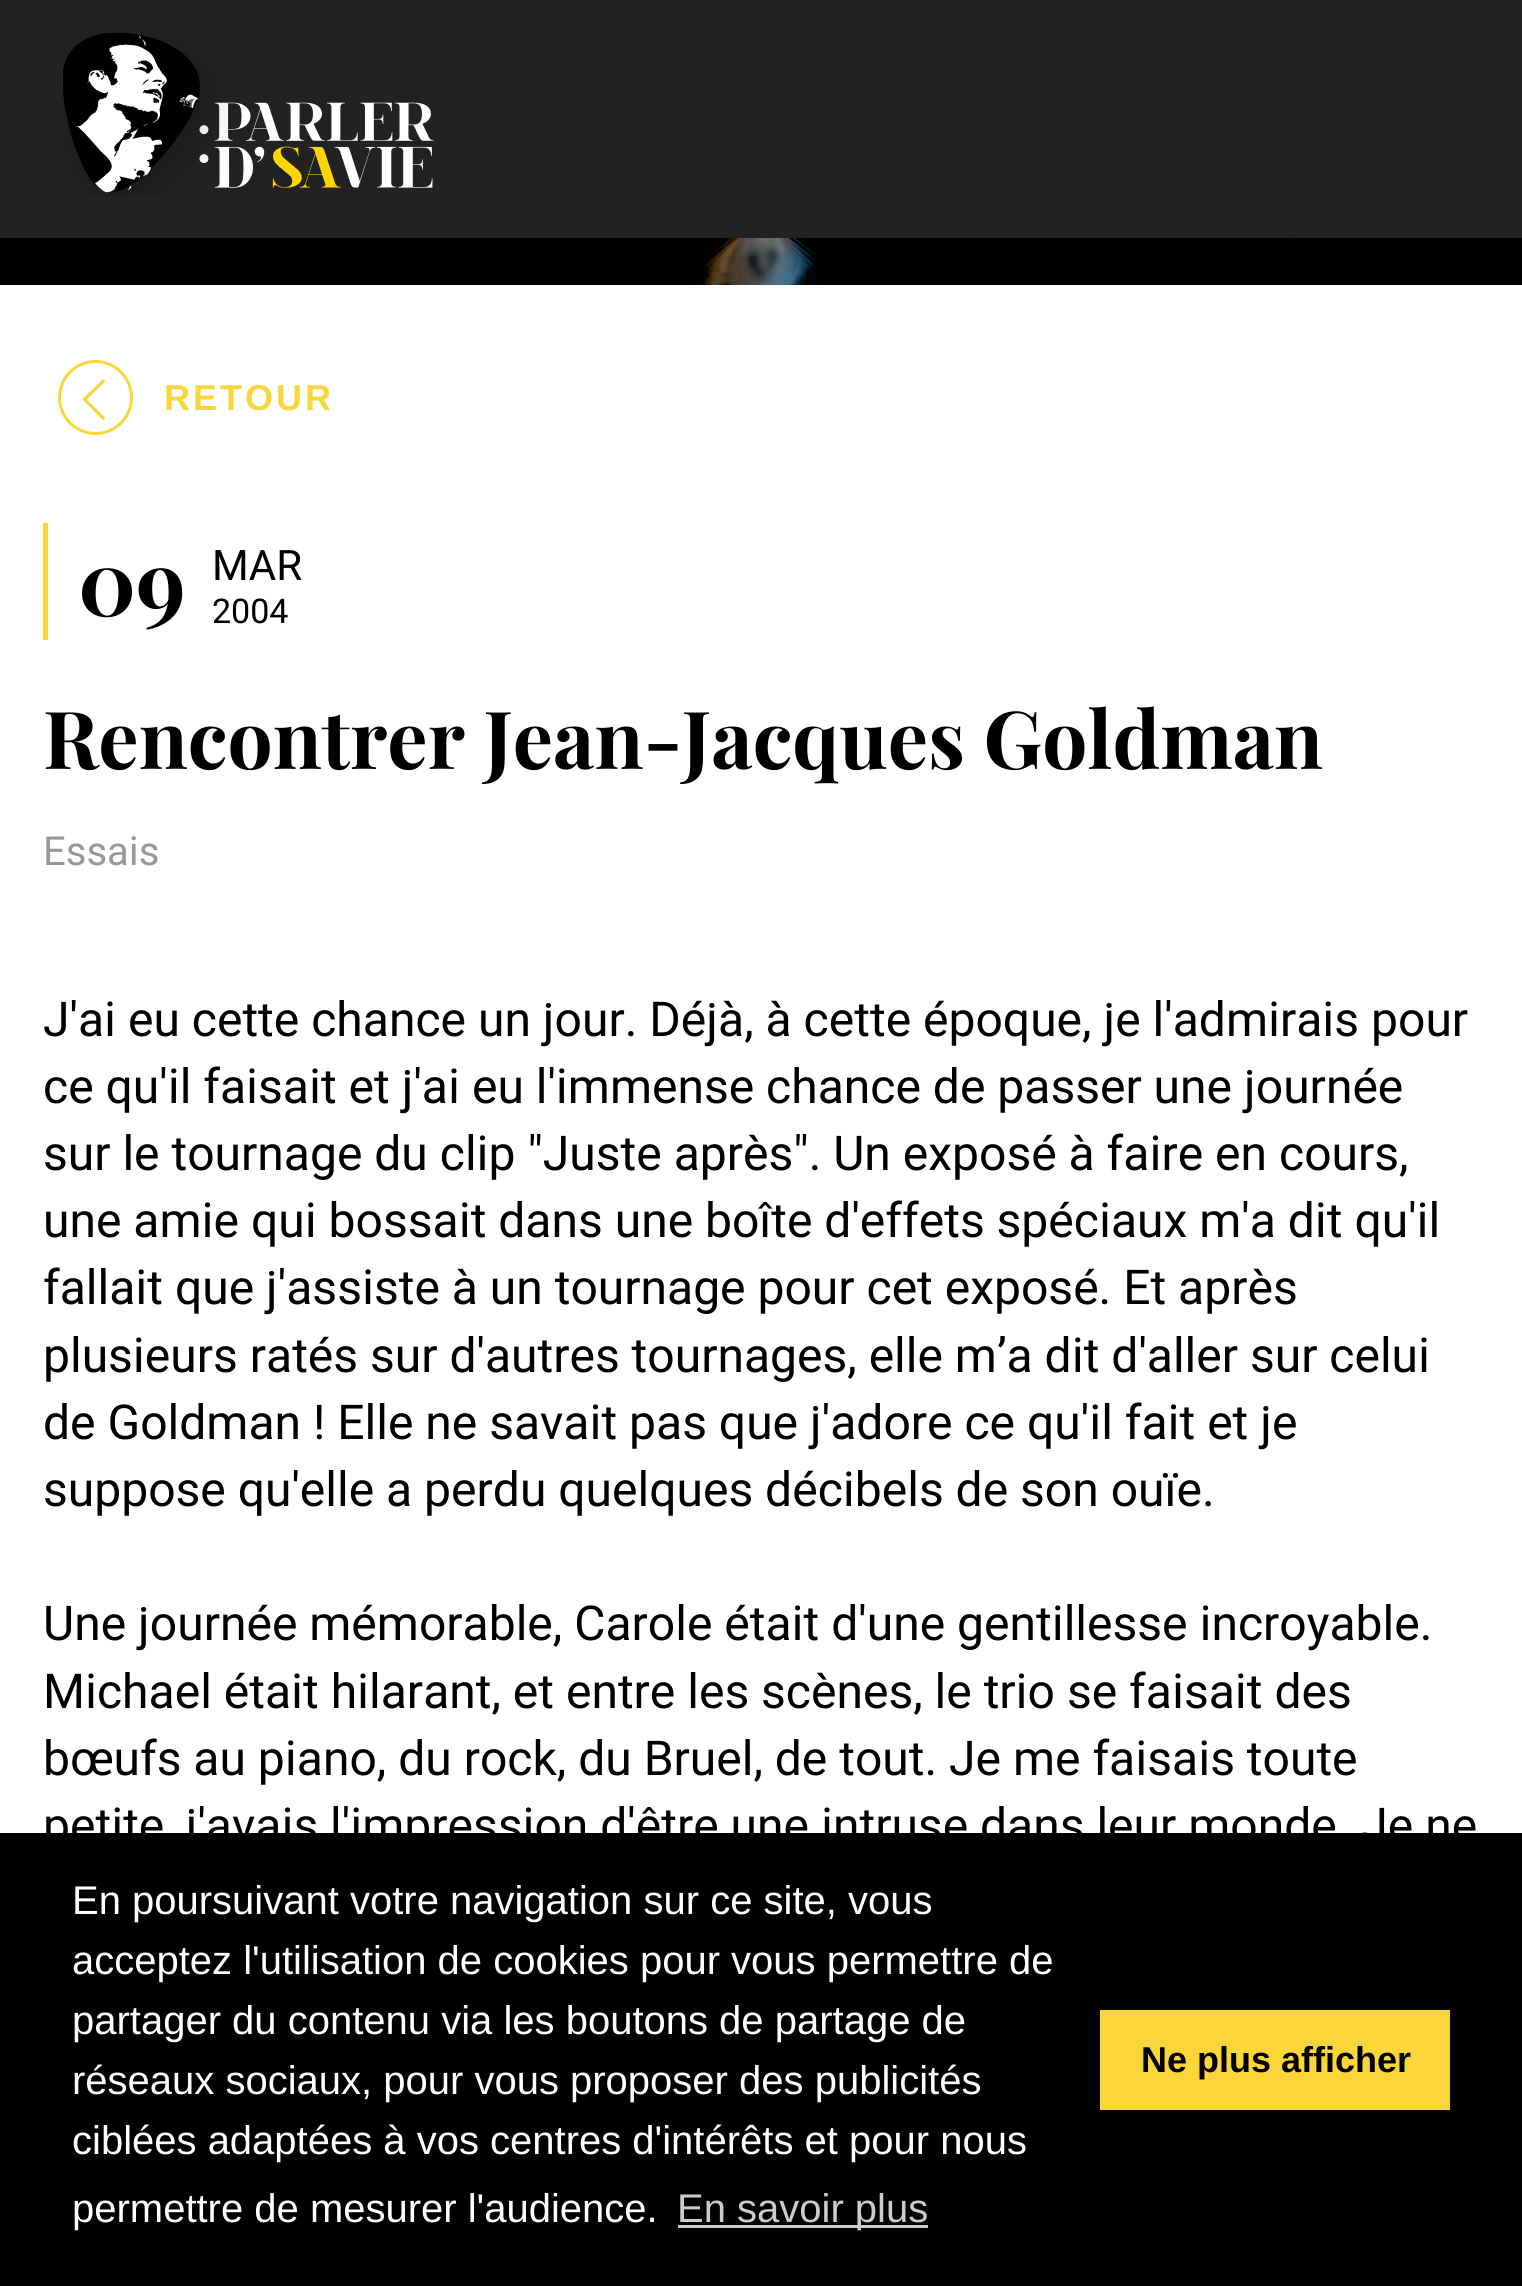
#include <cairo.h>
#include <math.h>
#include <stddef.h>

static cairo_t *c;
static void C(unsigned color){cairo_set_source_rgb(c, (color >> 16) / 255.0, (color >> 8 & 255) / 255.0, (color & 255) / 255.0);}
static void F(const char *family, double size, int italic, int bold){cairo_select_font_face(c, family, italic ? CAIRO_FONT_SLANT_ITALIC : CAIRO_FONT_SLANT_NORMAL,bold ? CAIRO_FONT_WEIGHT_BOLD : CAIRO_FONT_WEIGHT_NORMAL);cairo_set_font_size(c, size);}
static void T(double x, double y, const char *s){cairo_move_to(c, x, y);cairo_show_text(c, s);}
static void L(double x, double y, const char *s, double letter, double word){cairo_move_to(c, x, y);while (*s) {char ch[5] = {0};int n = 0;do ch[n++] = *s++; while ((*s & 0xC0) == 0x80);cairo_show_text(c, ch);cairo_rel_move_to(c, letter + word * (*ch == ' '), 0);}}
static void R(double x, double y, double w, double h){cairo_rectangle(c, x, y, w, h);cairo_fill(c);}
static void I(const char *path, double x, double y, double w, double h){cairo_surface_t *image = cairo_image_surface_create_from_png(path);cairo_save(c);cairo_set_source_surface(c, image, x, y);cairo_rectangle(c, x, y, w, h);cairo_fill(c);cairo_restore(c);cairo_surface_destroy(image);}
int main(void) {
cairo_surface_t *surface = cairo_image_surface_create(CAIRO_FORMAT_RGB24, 1522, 2286);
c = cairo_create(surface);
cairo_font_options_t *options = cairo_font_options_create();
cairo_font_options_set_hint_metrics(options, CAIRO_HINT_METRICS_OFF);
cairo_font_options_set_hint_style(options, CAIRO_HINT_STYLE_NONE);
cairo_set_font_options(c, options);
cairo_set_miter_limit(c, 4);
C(0xffffff);
cairo_paint(c);
C(0x222222);
R(0,0,1522,238);
I("2.png",199,102,235,86);
I("1.png",63,33,165,163);
C(0x000000);
R(0,238,1293,47);
I("3.png",1,238,1521,47);
cairo_arc(c,95.5,397.5,36,0,2 * M_PI);
C(0xfbd63a);
cairo_set_line_width(c,3);
cairo_stroke(c);
I("4.png",82,379,23,41);
F("Liberation Sans",36,0,1);
L(164,410,"RETOUR",3,0);
R(43,523,5,117);
F("Playfair Display",90,0,1);
C(0x000000);
T(78,616,"09");
F("Heebo",42,0,0);
T(212,580,"MAR");
F("Heebo",34,0,0);
T(212,623,"2004");
F("Playfair Display",80,0,1);
T(43,769,"Rencontrer Jean-Jacques Goldman");
F("Heebo",40,0,0);
C(0x989898);
T(43,865,"Essais");
F("Heebo",48,0,0);
C(0x000000);
T(43,1036,"J'ai eu cette chance un jour. Déjà, à cette époque, je l'admirais pour");
T(43,1103,"ce qu'il faisait et j'ai eu l'immense chance de passer une journée");
T(43,1170,"sur le tournage du clip \"Juste après\". Un exposé à faire en cours,");
T(43,1237,"une amie qui bossait dans une boîte d'effets spéciaux m'a dit qu'il");
T(43,1304,"fallait que j'assiste à un tournage pour cet exposé. Et après");
T(43,1372,"plusieurs ratés sur d'autres tournages, elle m’a dit d'aller sur celui");
T(43,1439,"de Goldman ! Elle ne savait pas que j'adore ce qu'il fait et je");
T(43,1506,"suppose qu'elle a perdu quelques décibels de son ouïe.");
T(43,1640,"Une journée mémorable, Carole était d'une gentillesse incroyable.");
T(43,1708,"Michael était hilarant, et entre les scènes, le trio se faisait des");
T(43,1775,"bœufs au piano, du rock, du Bruel, de tout. Je me faisais toute");
T(43,1842,"petite, j'avais l'impression d'être une intruse dans leur monde. Je ne");
R(0,1833,1522,453);
F("Liberation Sans",40,0,0);
C(0xffffff);
T(72,1914,"En poursuivant votre navigation sur ce site, vous");
T(72,1974,"acceptez l'utilisation de cookies pour vous permettre de");
T(72,2034,"partager du contenu via les boutons de partage de");
T(72,2094,"réseaux sociaux, pour vous proposer des publicités");
T(72,2154,"ciblées adaptées à vos centres d'intérêts et pour nous");
T(72,2222,"permettre de mesurer l'audience.");
C(0xcccccc);
R(678,2225,250,3);
T(677,2222,"En savoir plus");
C(0xfbd63a);
R(1100,2010,350,100);
F("Liberation Sans",36,0,1);
C(0x000000);
T(1141,2072,"Ne plus afficher");
cairo_surface_write_to_png(surface, "o.png");
cairo_font_options_destroy(options);
cairo_destroy(c);
cairo_surface_destroy(surface);
return 0;
}
